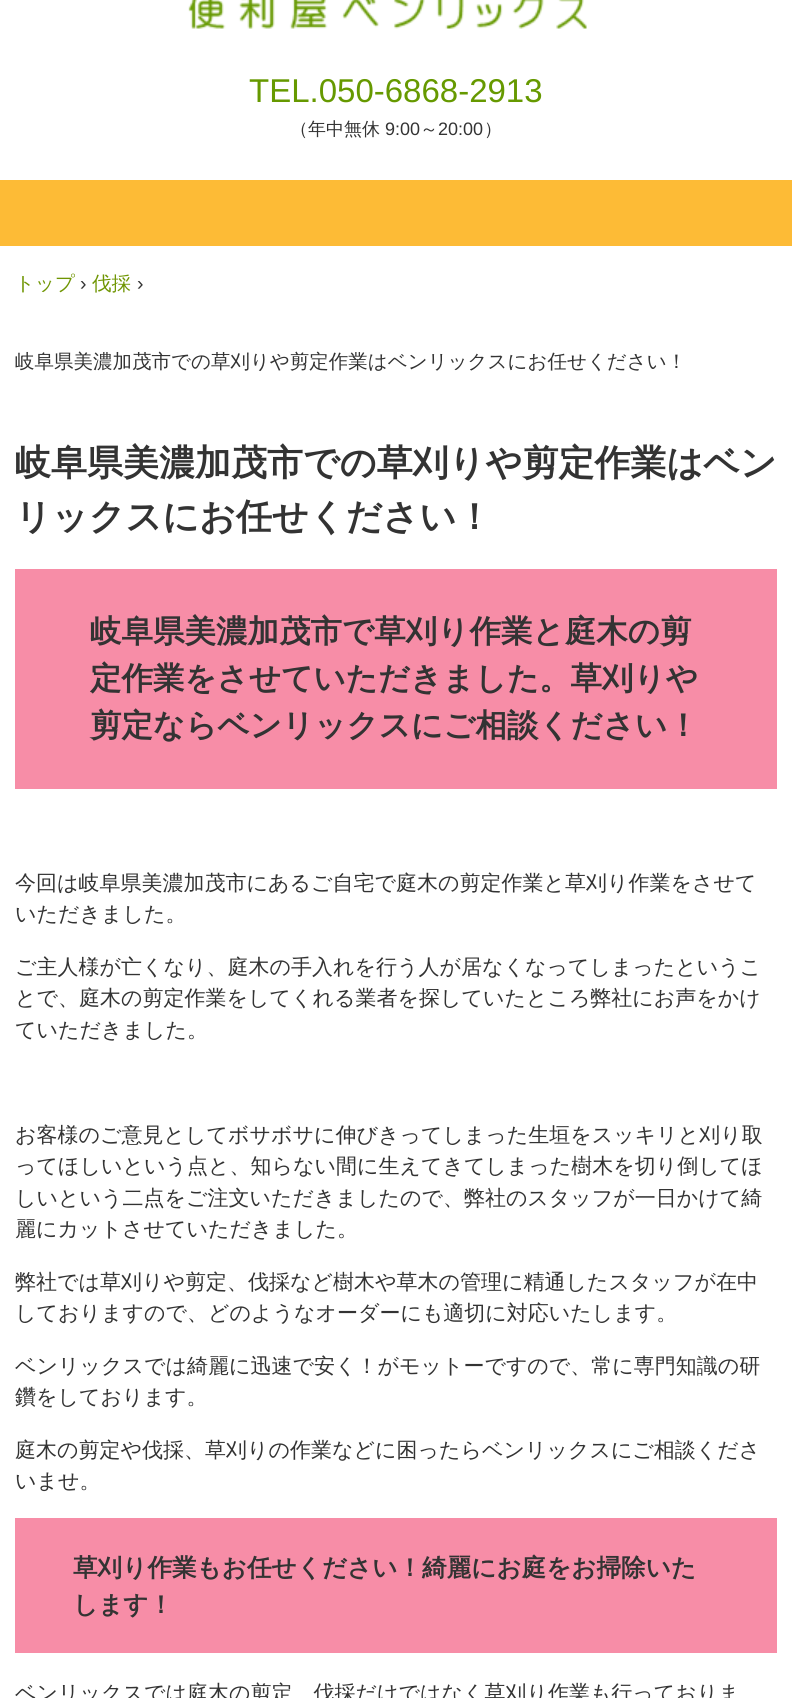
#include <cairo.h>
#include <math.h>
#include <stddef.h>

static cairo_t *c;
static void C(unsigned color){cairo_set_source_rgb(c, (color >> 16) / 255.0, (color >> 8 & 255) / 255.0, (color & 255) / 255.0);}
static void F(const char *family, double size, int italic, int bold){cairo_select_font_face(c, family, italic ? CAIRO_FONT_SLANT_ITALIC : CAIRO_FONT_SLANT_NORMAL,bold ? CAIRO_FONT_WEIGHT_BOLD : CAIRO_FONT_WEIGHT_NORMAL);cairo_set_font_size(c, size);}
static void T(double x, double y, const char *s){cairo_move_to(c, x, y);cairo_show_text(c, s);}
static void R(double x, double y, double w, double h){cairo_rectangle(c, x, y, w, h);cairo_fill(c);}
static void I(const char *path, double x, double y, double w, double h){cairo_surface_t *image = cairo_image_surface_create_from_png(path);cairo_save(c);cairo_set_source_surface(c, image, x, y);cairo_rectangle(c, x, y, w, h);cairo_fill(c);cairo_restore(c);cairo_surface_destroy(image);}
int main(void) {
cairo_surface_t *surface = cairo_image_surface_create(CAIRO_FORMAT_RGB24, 792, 1698);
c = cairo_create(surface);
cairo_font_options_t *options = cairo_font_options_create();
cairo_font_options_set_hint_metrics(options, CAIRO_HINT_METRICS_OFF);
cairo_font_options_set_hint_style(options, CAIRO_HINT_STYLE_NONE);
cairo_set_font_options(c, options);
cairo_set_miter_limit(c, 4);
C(0xffffff);
cairo_paint(c);
I("1.png",188,0,399,29);
F("Liberation Sans",33,0,0);
C(0x669900);
T(249,102,"TEL.050-6868-2913");
F("WenQuanYi Zen Hei Medium",18,0,0);
C(0x333333);
T(290,135,"（年中無休");
F("Liberation Sans",18,0,0);
T(385,135,"9:00");
F("WenQuanYi Zen Hei Medium",18,0,0);
T(420,135,"～");
F("Liberation Sans",18,0,0);
T(438,135,"20:00");
F("WenQuanYi Zen Hei Medium",18,0,0);
T(484,135,"）");
C(0xfdbb36);
R(0,180,792,66);
F("WenQuanYi Zen Hei Medium",19.5,0,0);
C(0x6f9502);
T(15,290,"トップ");
F("Liberation Sans",19.5,0,0);
C(0x333333);
T(80,290,"›");
F("WenQuanYi Zen Hei Medium",19.5,0,0);
C(0x6f9502);
T(92,290,"伐採");
F("Liberation Sans",19.5,0,0);
C(0x333333);
T(137,290,"›");
F("WenQuanYi Zen Hei Medium",19.5,0,0);
T(15,368,"岐阜県美濃加茂市での草刈りや剪定作業はベンリックスにお任せください！");
F("WenQuanYi Zen Hei",36,0,1);
T(15,475,"岐阜県美濃加茂市での草刈りや剪定作業はベン");
T(15,529,"リックスにお任せください！");
C(0xf78da7);
R(15,569,762,220);
F("WenQuanYi Zen Hei",31.5,0,1);
C(0x333333);
T(90,642,"岐阜県美濃加茂市で草刈り作業と庭木の剪");
T(90,689,"定作業をさせていただきました。草刈りや");
T(90,736,"剪定ならベンリックスにご相談ください！");
F("WenQuanYi Zen Hei Medium",21,0,0);
T(15,890,"今回は岐阜県美濃加茂市にあるご自宅で庭木の剪定作業と草刈り作業をさせて");
T(15,921,"いただきました。");
T(15,974,"ご主人様が亡くなり、庭木の手入れを行う人が居なくなってしまったというこ");
T(15,1005,"とで、庭木の剪定作業をしてくれる業者を探していたところ弊社にお声をかけ");
T(15,1037,"ていただきました。");
T(15,1142,"お客様のご意見としてボサボサに伸びきってしまった生垣をスッキリと刈り取");
T(15,1173,"ってほしいという点と、知らない間に生えてきてしまった樹木を切り倒してほ");
T(15,1205,"しいという二点をご注文いただきましたので、弊社のスタッフが一日かけて綺");
T(15,1236,"麗にカットさせていただきました。");
T(15,1289,"弊社では草刈りや剪定、伐採など樹木や草木の管理に精通したスタッフが在中");
T(15,1320,"しておりますので、どのようなオーダーにも適切に対応いたします。");
T(15,1373,"ベンリックスでは綺麗に迅速で安く！がモットーですので、常に専門知識の研");
T(15,1404,"鑽をしております。");
T(15,1457,"庭木の剪定や伐採、草刈りの作業などに困ったらベンリックスにご相談くださ");
T(15,1488,"いませ。");
C(0xf78da7);
R(15,1518,762,135);
F("WenQuanYi Zen Hei",24.6,0,1);
C(0x333333);
T(73,1576,"草刈り作業もお任せください！綺麗にお庭をお掃除いた");
T(73,1613,"します！");
F("WenQuanYi Zen Hei Medium",21,0,0);
T(15,1700,"ベンリックスでは庭木の剪定、伐採だけではなく草刈り作業も行っておりま");
cairo_surface_write_to_png(surface, "o.png");
cairo_font_options_destroy(options);
cairo_destroy(c);
cairo_surface_destroy(surface);
return 0;
}
